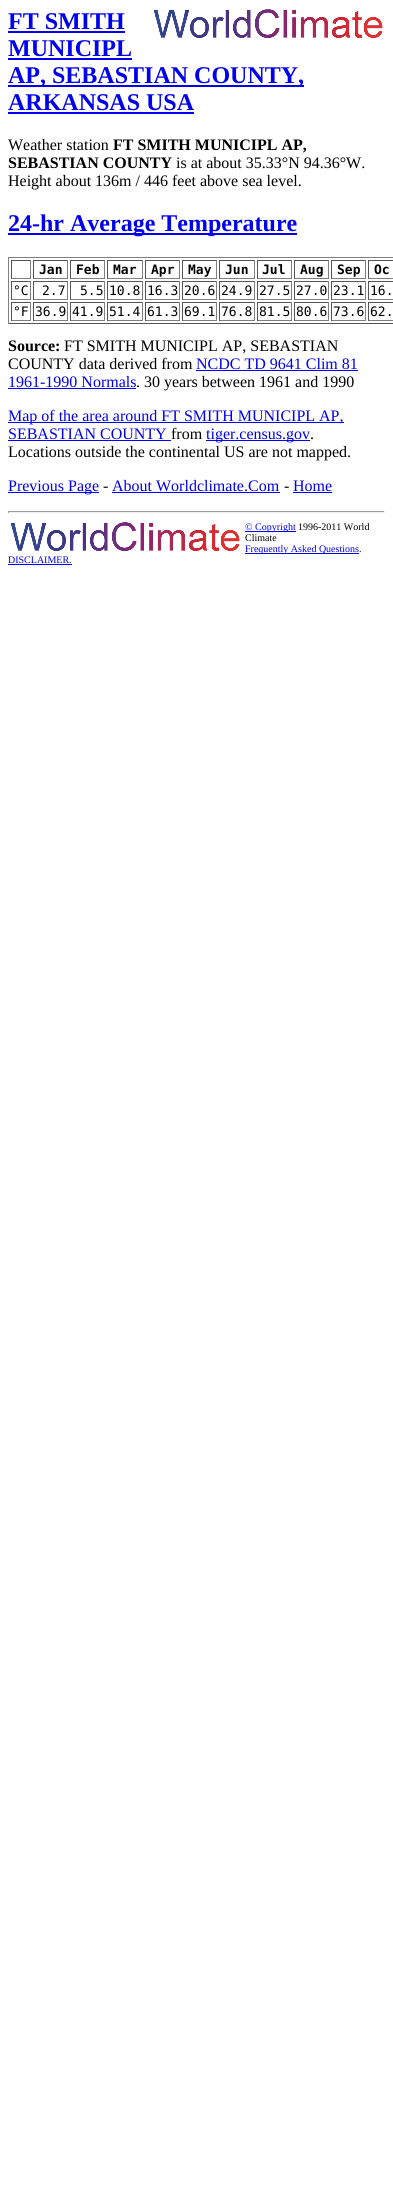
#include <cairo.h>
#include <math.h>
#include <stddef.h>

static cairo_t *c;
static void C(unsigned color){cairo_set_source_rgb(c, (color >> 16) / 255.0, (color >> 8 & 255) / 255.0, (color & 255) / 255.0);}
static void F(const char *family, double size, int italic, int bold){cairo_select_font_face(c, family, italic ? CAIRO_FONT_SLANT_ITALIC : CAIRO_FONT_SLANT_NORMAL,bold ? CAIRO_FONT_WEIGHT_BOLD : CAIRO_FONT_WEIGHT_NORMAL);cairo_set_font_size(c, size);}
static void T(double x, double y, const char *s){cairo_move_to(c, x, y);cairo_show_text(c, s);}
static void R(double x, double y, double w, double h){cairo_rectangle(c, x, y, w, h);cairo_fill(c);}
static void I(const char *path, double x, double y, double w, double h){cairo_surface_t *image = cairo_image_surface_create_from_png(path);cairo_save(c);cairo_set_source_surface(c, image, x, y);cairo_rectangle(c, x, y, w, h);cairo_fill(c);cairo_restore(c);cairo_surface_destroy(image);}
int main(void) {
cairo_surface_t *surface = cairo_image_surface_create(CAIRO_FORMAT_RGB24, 393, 2187);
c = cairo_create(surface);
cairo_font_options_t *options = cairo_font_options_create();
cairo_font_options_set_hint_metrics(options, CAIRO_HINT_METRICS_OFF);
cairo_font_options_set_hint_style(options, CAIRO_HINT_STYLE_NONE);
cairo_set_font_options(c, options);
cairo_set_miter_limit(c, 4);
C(0xffffff);
cairo_paint(c);
F("Liberation Serif",24,0,1);
C(0x0000ee);
T(8,29,"FT SMITH");
R(8,31,117,2);
I("1.png",154,9,229,29);
T(8,56,"MUNICIPL");
R(8,58,124,2);
R(8,85,296,2);
T(8,83,"AP, SEBASTIAN COUNTY,");
T(8,110,"ARKANSAS USA");
R(8,112,186,2);
F("Liberation Serif",16,0,0);
C(0x000000);
T(8,150,"Weather station");
F("Liberation Serif",16,0,1);
T(113,150,"FT SMITH MUNICIPL AP,");
T(8,168,"SEBASTIAN COUNTY");
F("Liberation Serif",16,0,0);
T(176,168,"is at about 35.33°N 94.36°W.");
T(8,186,"Height about 136m / 446 feet above sea level.");
C(0x0000ee);
R(8,233,289,2);
F("Liberation Serif",24,0,1);
T(8,231,"24-hr Average Temperature");
C(0x808080);
R(8,257,385,1);
C(0x555555);
R(8,323,385,1);
C(0x808080);
R(8,257,1,67);
C(0x555555);
R(11,260,20,1);
C(0x808080);
R(30,260,1,19);
R(11,278,20,1);
C(0x555555);
R(11,260,1,19);
R(33,260,35,1);
C(0x808080);
R(67,260,1,19);
R(33,278,35,1);
C(0x555555);
R(33,260,1,19);
F("DejaVu Sans Mono",13,0,1);
C(0x000000);
T(39,274,"Jan");
C(0x555555);
R(70,260,35,1);
C(0x808080);
R(104,260,1,19);
R(70,278,35,1);
C(0x555555);
R(70,260,1,19);
C(0x000000);
T(76,274,"Feb");
C(0x555555);
R(107,260,36,1);
C(0x808080);
R(142,260,1,19);
R(107,278,36,1);
C(0x555555);
R(107,260,1,19);
C(0x000000);
T(113,274,"Mar");
C(0x555555);
R(145,260,35,1);
C(0x808080);
R(179,260,1,19);
R(145,278,35,1);
C(0x555555);
R(145,260,1,19);
C(0x000000);
T(151,274,"Apr");
C(0x555555);
R(182,260,35,1);
C(0x808080);
R(216,260,1,19);
R(182,278,35,1);
C(0x555555);
R(182,260,1,19);
C(0x000000);
T(188,274,"May");
C(0x555555);
R(219,260,36,1);
C(0x808080);
R(254,260,1,19);
R(219,278,36,1);
C(0x555555);
R(219,260,1,19);
C(0x000000);
T(225,274,"Jun");
C(0x555555);
R(257,260,35,1);
C(0x808080);
R(291,260,1,19);
R(257,278,35,1);
C(0x555555);
R(257,260,1,19);
C(0x000000);
T(262,274,"Jul");
C(0x555555);
R(294,260,35,1);
C(0x808080);
R(328,260,1,19);
R(294,278,35,1);
C(0x555555);
R(294,260,1,19);
C(0x000000);
T(300,274,"Aug");
C(0x555555);
R(331,260,35,1);
C(0x808080);
R(365,260,1,19);
R(331,278,35,1);
C(0x555555);
R(331,260,1,19);
C(0x000000);
T(337,274,"Sep");
C(0x555555);
R(368,260,25,1);
C(0x808080);
R(368,278,25,1);
C(0x555555);
R(368,260,1,19);
C(0x000000);
T(374,274,"Oc");
C(0x555555);
R(11,281,20,1);
C(0x808080);
R(30,281,1,19);
R(11,299,20,1);
C(0x555555);
R(11,281,1,19);
F("DejaVu Sans Mono",13,0,0);
C(0x000000);
T(13,295,"°C");
C(0x555555);
R(33,281,35,1);
C(0x808080);
R(67,281,1,19);
R(33,299,35,1);
C(0x555555);
R(33,281,1,19);
C(0x000000);
T(42,295,"2.7");
C(0x555555);
R(70,281,35,1);
C(0x808080);
R(104,281,1,19);
R(70,299,35,1);
C(0x555555);
R(70,281,1,19);
C(0x000000);
T(80,295,"5.5");
C(0x555555);
R(107,281,36,1);
C(0x808080);
R(142,281,1,19);
R(107,299,36,1);
C(0x555555);
R(107,281,1,19);
C(0x000000);
T(109,295,"10.8");
C(0x555555);
R(145,281,35,1);
C(0x808080);
R(179,281,1,19);
R(145,299,35,1);
C(0x555555);
R(145,281,1,19);
C(0x000000);
T(147,295,"16.3");
C(0x555555);
R(182,281,35,1);
C(0x808080);
R(216,281,1,19);
R(182,299,35,1);
C(0x555555);
R(182,281,1,19);
C(0x000000);
T(184,295,"20.6");
C(0x555555);
R(219,281,36,1);
C(0x808080);
R(254,281,1,19);
R(219,299,36,1);
C(0x555555);
R(219,281,1,19);
C(0x000000);
T(221,295,"24.9");
C(0x555555);
R(257,281,35,1);
C(0x808080);
R(291,281,1,19);
R(257,299,35,1);
C(0x555555);
R(257,281,1,19);
C(0x000000);
T(259,295,"27.5");
C(0x555555);
R(294,281,35,1);
C(0x808080);
R(328,281,1,19);
R(294,299,35,1);
C(0x555555);
R(294,281,1,19);
C(0x000000);
T(296,295,"27.0");
C(0x555555);
R(331,281,35,1);
C(0x808080);
R(365,281,1,19);
R(331,299,35,1);
C(0x555555);
R(331,281,1,19);
C(0x000000);
T(333,295,"23.1");
C(0x555555);
R(368,281,25,1);
C(0x808080);
R(368,299,25,1);
C(0x555555);
R(368,281,1,19);
C(0x000000);
T(370,295,"16.");
C(0x555555);
R(11,302,20,1);
C(0x808080);
R(30,302,1,19);
R(11,320,20,1);
C(0x555555);
R(11,302,1,19);
C(0x000000);
T(13,316,"°F");
C(0x555555);
R(33,302,35,1);
C(0x808080);
R(67,302,1,19);
R(33,320,35,1);
C(0x555555);
R(33,302,1,19);
C(0x000000);
T(35,316,"36.9");
C(0x555555);
R(70,302,35,1);
C(0x808080);
R(104,302,1,19);
R(70,320,35,1);
C(0x555555);
R(70,302,1,19);
C(0x000000);
T(72,316,"41.9");
C(0x555555);
R(107,302,36,1);
C(0x808080);
R(142,302,1,19);
R(107,320,36,1);
C(0x555555);
R(107,302,1,19);
C(0x000000);
T(109,316,"51.4");
C(0x555555);
R(145,302,35,1);
C(0x808080);
R(179,302,1,19);
R(145,320,35,1);
C(0x555555);
R(145,302,1,19);
C(0x000000);
T(147,316,"61.3");
C(0x555555);
R(182,302,35,1);
C(0x808080);
R(216,302,1,19);
R(182,320,35,1);
C(0x555555);
R(182,302,1,19);
C(0x000000);
T(184,316,"69.1");
C(0x555555);
R(219,302,36,1);
C(0x808080);
R(254,302,1,19);
R(219,320,36,1);
C(0x555555);
R(219,302,1,19);
C(0x000000);
T(221,316,"76.8");
C(0x555555);
R(257,302,35,1);
C(0x808080);
R(291,302,1,19);
R(257,320,35,1);
C(0x555555);
R(257,302,1,19);
C(0x000000);
T(259,316,"81.5");
C(0x555555);
R(294,302,35,1);
C(0x808080);
R(328,302,1,19);
R(294,320,35,1);
C(0x555555);
R(294,302,1,19);
C(0x000000);
T(296,316,"80.6");
C(0x555555);
R(331,302,35,1);
C(0x808080);
R(365,302,1,19);
R(331,320,35,1);
C(0x555555);
R(331,302,1,19);
C(0x000000);
T(333,316,"73.6");
C(0x555555);
R(368,302,25,1);
C(0x808080);
R(368,320,25,1);
C(0x555555);
R(368,302,1,19);
C(0x000000);
T(370,316,"62.");
F("Liberation Serif",16,0,1);
T(8,351,"Source:");
F("Liberation Serif",16,0,0);
T(64,351,"FT SMITH MUNICIPL AP, SEBASTIAN");
T(8,369,"COUNTY data derived from");
C(0x0000ee);
T(196,369,"NCDC TD 9641 Clim 81");
R(196,370,162,1);
T(8,387,"1961-1990 Normals");
R(8,388,128,1);
C(0x000000);
T(136,387,". 30 years between 1961 and 1990");
C(0x0000ee);
R(8,422,336,1);
T(8,421,"Map of the area around FT SMITH MUNICIPL AP,");
T(8,439,"SEBASTIAN COUNTY");
R(8,440,163,1);
C(0x000000);
T(171,439,"from");
C(0x0000ee);
R(206,440,104,1);
T(206,439,"tiger.census.gov");
C(0x000000);
T(310,439,".");
T(8,457,"Locations outside the continental US are not mapped.");
C(0x0000ee);
R(8,492,91,1);
T(8,491,"Previous Page");
C(0x000000);
T(103,491,"-");
C(0x0000ee);
T(112,491,"About Worldclimate.Com");
R(112,492,168,1);
C(0x000000);
T(284,491,"-");
C(0x0000ee);
T(293,491,"Home");
R(293,492,39,1);
C(0x9f9f9f);
R(8,511,377,1);
C(0xeeeeee);
R(384,511,1,2);
R(8,512,377,1);
C(0x9f9f9f);
R(8,511,1,2);
I("1.png",11,522,229,29);
C(0x0000ee);
R(245,531,51,1);
F("Liberation Serif",10,0,0);
T(245,530,"© Copyright");
C(0x000000);
T(298,530,"1996-2011 World");
T(245,541,"Climate");
C(0x0000ee);
R(245,553,114,1);
T(245,552,"Frequently Asked Questions");
C(0x000000);
T(359,552,".");
C(0x0000ee);
T(8,563,"DISCLAIMER.");
R(8,564,64,1);
cairo_surface_write_to_png(surface, "o.png");
cairo_font_options_destroy(options);
cairo_destroy(c);
cairo_surface_destroy(surface);
return 0;
}
